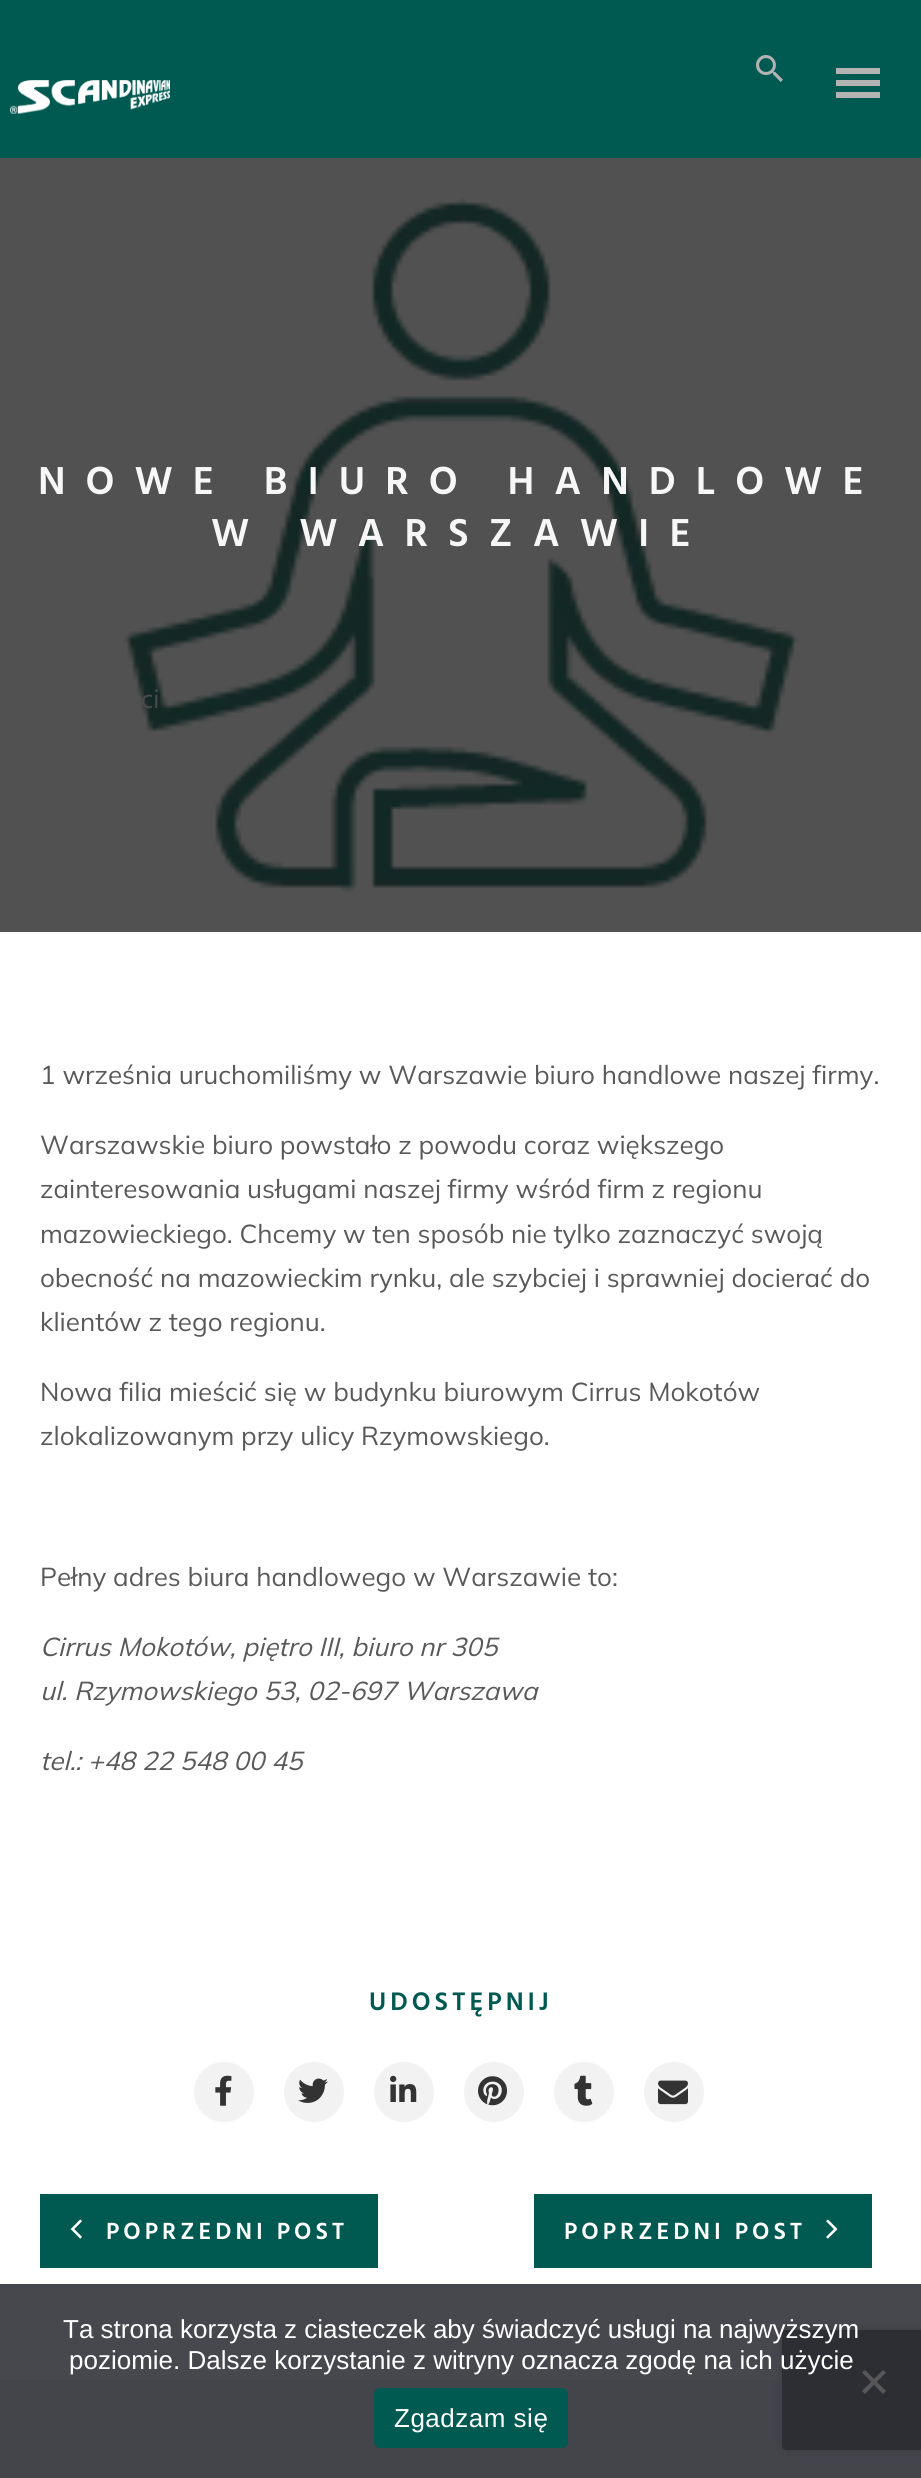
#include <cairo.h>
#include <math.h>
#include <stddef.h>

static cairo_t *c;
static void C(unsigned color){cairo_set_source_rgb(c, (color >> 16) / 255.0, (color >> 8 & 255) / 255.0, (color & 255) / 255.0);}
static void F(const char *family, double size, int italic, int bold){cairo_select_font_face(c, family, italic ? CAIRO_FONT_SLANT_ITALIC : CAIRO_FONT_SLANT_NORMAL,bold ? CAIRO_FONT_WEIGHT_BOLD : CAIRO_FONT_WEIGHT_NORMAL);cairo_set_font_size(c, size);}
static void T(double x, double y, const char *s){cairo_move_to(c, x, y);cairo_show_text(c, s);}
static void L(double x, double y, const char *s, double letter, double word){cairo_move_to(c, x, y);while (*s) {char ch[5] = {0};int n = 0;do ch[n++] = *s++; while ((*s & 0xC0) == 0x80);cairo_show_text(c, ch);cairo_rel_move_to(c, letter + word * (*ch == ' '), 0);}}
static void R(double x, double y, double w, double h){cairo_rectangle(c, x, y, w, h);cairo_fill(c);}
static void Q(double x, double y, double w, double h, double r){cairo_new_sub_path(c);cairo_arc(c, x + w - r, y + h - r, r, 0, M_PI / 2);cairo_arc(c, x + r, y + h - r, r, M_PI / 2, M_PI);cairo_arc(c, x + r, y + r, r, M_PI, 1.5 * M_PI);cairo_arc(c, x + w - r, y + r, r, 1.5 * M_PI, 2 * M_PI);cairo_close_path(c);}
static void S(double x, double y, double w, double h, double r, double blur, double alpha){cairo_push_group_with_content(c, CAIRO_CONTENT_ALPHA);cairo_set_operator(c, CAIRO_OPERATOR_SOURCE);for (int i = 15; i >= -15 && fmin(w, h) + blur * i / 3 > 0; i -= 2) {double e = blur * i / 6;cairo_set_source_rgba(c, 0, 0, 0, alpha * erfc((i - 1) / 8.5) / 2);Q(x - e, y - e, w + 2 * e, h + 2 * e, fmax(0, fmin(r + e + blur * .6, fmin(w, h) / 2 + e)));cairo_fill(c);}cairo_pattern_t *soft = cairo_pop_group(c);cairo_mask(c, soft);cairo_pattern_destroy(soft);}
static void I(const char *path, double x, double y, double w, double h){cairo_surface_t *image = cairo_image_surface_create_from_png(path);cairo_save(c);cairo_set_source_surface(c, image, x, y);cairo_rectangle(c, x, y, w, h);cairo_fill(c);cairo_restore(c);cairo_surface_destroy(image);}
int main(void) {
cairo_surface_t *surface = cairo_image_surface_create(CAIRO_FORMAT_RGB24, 921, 2478);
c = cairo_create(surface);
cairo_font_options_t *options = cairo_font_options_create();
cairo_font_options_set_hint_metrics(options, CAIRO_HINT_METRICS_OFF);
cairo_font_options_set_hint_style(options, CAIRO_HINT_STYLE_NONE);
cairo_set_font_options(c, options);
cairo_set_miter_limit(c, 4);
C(0x515151);
cairo_paint(c);
I("1.png",123,198,676,695);
F("Hind SemiBold",40,0,0);
C(0xf7f7f7);
L(38,494,"NOWE BIURO HANDLOWE",20,0);
L(211,546,"W WARSZAWIE",20,0);
C(0x005a51);
R(0,0,921,158);
I("2.png",756,55,27,27);
I("3.png",10,80,160,34);
C(0xb3b3b3);
R(836,68,44,6);
R(836,80,44,6);
R(836,92,44,6);
F("Hind",26,0,0);
C(0x4a4c4c);
T(141,708,"ci");
C(0xffffff);
R(0,932,921,1352);
C(0x47474e);
R(0,2284,921,96);
F("Mulish ExtraLight",26,0,0);
C(0x595959);
T(40,1084,"1 września uruchomiliśmy w Warszawie biuro handlowe naszej firmy.");
T(40,1154,"Warszawskie biuro powstało z powodu coraz większego");
T(40,1198,"zainteresowania usługami naszej firmy wśród firm z regionu");
T(40,1243,"mazowieckiego. Chcemy w ten sposób nie tylko zaznaczyć swoją");
T(40,1287,"obecność na mazowieckim rynku, ale szybciej i sprawniej docierać do");
T(40,1331,"klientów z tego regionu.");
T(40,1401,"Nowa filia mieścić się w budynku biurowym Cirrus Mokotów");
T(40,1445,"zlokalizowanym przy ulicy Rzymowskiego.");
T(40,1586,"Pełny adres biura handlowego w Warszawie to:");
F("Mulish ExtraLight",26,1,0);
T(40,1656,"Cirrus Mokotów, piętro III, biuro nr 305");
T(40,1700,"ul. Rzymowskiego 53, 02-697 Warszawa");
T(40,1770,"tel.: +48 22 548 00 45");
F("Hind SemiBold",26,0,0);
C(0x005a51);
L(369,2010,"UDOSTĘPNIJ",4,0);
C(0xf2f2f2);
cairo_new_path(c);
cairo_arc(c,224,2092,30,0,2 * M_PI);
cairo_fill(c);
I("4.png",215,2075,17,31);
cairo_arc(c,314,2092,30,0,2 * M_PI);
cairo_fill(c);
I("5.png",298,2078,30,25);
cairo_arc(c,404,2092,30,0,2 * M_PI);
cairo_fill(c);
I("6.png",390,2075,27,27);
cairo_arc(c,494,2092,30,0,2 * M_PI);
cairo_fill(c);
I("7.png",478,2076,30,30);
cairo_arc(c,584,2092,30,0,2 * M_PI);
cairo_fill(c);
I("8.png",574,2075,19,31);
cairo_arc(c,674,2092,30,0,2 * M_PI);
cairo_fill(c);
I("9.png",658,2080,30,25);
C(0x005a51);
R(40,2194,338,74);
I("10.png",70,2219,12,20);
F("Hind SemiBold",24,0,0);
C(0xffffff);
L(106,2239,"POPRZEDNI POST",4,0);
C(0x005a51);
R(534,2194,338,74);
C(0xffffff);
L(564,2239,"POPRZEDNI POST",4,0);
I("11.png",826,2219,12,20);
C(0x44444b);
R(0,2380,921,98);
C(0x3a3a41);
S(782,2330,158,120,4,5,1);
C(0x2d2d34);
Q(782,2330,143,120,4);
cairo_fill(c);
F("Liberation Sans",26,0,0);
C(0xffffff);
T(63,2338,"Ta strona korzysta z ciasteczek aby świadczyć usługi na najwyższym");
T(69,2369,"poziomie. Dalsze korzystanie z witryny oznacza zgodę na ich użycie");
C(0x57575a);
cairo_new_path(c);
cairo_move_to(c,883,2370);
cairo_line_to(c,886,2372.5);
cairo_line_to(c,865,2394);
cairo_line_to(c,862,2391);
cairo_close_path(c);
cairo_fill(c);
cairo_new_path(c);
cairo_move_to(c,862,2372.5);
cairo_line_to(c,865,2370);
cairo_line_to(c,886,2391);
cairo_line_to(c,883,2394);
cairo_close_path(c);
cairo_fill(c);
C(0x005a51);
Q(374,2388,194,60,6);
cairo_fill(c);
C(0xffffff);
L(394,2427,"Zgadzam się",.5,0);
cairo_surface_write_to_png(surface, "o.png");
cairo_font_options_destroy(options);
cairo_destroy(c);
cairo_surface_destroy(surface);
return 0;
}
